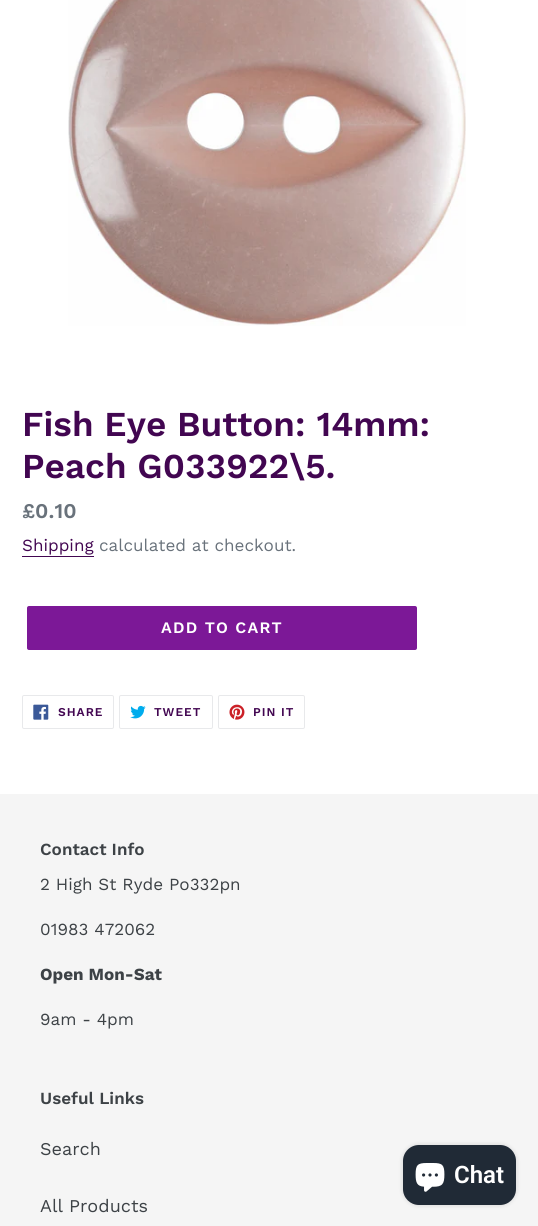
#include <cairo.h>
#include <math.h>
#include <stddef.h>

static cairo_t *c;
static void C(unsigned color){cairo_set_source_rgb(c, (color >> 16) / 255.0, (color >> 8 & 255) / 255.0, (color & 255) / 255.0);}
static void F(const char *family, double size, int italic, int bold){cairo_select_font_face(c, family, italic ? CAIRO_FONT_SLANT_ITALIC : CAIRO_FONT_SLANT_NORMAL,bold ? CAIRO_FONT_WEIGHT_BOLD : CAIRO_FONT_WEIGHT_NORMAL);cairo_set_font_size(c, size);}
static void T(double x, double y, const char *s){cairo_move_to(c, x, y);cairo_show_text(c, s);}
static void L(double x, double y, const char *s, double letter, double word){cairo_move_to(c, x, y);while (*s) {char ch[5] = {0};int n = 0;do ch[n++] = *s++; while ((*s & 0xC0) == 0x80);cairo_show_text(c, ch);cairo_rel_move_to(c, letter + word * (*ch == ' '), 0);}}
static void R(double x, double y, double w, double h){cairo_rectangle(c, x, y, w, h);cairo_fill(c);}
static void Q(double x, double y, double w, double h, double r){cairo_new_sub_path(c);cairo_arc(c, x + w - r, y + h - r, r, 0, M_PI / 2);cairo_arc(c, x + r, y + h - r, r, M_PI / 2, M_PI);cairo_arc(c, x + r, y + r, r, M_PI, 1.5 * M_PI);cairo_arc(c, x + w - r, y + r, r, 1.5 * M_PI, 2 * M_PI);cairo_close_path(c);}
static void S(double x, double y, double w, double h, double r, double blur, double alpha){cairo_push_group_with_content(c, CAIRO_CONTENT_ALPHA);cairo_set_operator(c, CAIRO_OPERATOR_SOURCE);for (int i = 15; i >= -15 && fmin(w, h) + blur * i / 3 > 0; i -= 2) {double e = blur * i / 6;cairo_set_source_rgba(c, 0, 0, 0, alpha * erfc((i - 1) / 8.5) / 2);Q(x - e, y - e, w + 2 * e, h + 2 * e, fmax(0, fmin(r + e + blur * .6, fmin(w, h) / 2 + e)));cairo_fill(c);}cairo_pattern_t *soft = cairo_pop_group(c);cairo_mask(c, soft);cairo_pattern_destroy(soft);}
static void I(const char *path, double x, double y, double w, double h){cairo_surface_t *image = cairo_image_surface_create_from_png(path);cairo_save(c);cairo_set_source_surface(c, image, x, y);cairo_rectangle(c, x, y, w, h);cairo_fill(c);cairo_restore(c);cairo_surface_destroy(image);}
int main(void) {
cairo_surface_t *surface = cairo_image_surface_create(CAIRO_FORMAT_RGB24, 538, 1226);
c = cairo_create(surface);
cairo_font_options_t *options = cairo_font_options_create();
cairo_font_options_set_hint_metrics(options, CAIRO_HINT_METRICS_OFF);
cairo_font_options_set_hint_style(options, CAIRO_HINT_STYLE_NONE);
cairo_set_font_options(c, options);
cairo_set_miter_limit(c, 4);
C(0xffffff);
cairo_paint(c);
I("1.png",68,0,398,326);
F("Work Sans SemiBold",35,0,0);
C(0x420651);
T(22,436,"Fish Eye Button: 14mm:");
T(22,478,"Peach G033922\\5.");
F("Work Sans SemiBold",21,0,0);
C(0x69727b);
T(22,518,"£0.10");
F("Work Sans",17,0,0);
C(0x420651);
T(22,551,"Shipping");
R(22,556,72,1);
C(0x69727b);
T(99,551,"calculated at checkout.");
C(0x7c1897);
Q(27,606,390,44,2);
cairo_fill(c);
F("Work Sans SemiBold",16,0,0);
C(0xffffff);
L(161,633,"ADD TO CART",1.25,0);
Q(22.5,695.5,91,33,1.5);
C(0xe8e9eb);
cairo_set_line_width(c,1);
cairo_stroke(c);
I("2.png",33,704,16,16);
F("Work Sans SemiBold",12,0,0);
C(0x420651);
L(58,716,"SHARE",1,0);
Q(119.5,695.5,93,33,1.5);
C(0xe8e9eb);
cairo_stroke(c);
I("3.png",130,705,16,14);
C(0x420651);
L(154,716,"TWEET",1,0);
Q(218.5,695.5,86,33,1.5);
C(0xe8e9eb);
cairo_stroke(c);
I("4.png",229,704,16,16);
C(0x420651);
L(253,716,"PIN IT",1,0);
C(0xf5f5f5);
R(0,794,538,432);
F("Work Sans SemiBold",17,0,0);
C(0x3d4246);
T(40,855,"Contact Info");
F("Work Sans",17,0,0);
T(40,890,"2 High St Ryde Po332pn");
T(40,935,"01983 472062");
F("Work Sans",17,0,1);
T(40,980,"Open Mon-Sat");
F("Work Sans",17,0,0);
T(40,1025,"9am - 4pm");
F("Work Sans SemiBold",17,0,0);
T(40,1104,"Useful Links");
F("Work Sans",18,0,0);
T(40,1155,"Search");
T(40,1212,"All Products");
C(0x000000);
S(403,1145,113,60,16,2.5,.15);
C(0x202a36);
Q(403,1145,113,60,16);
cairo_fill(c);
I("5.png",415,1163,30,29);
F("Roboto SemiBold",24,0,0);
C(0xffffff);
T(454,1183,"Chat");
cairo_surface_write_to_png(surface, "o.png");
cairo_font_options_destroy(options);
cairo_destroy(c);
cairo_surface_destroy(surface);
return 0;
}
